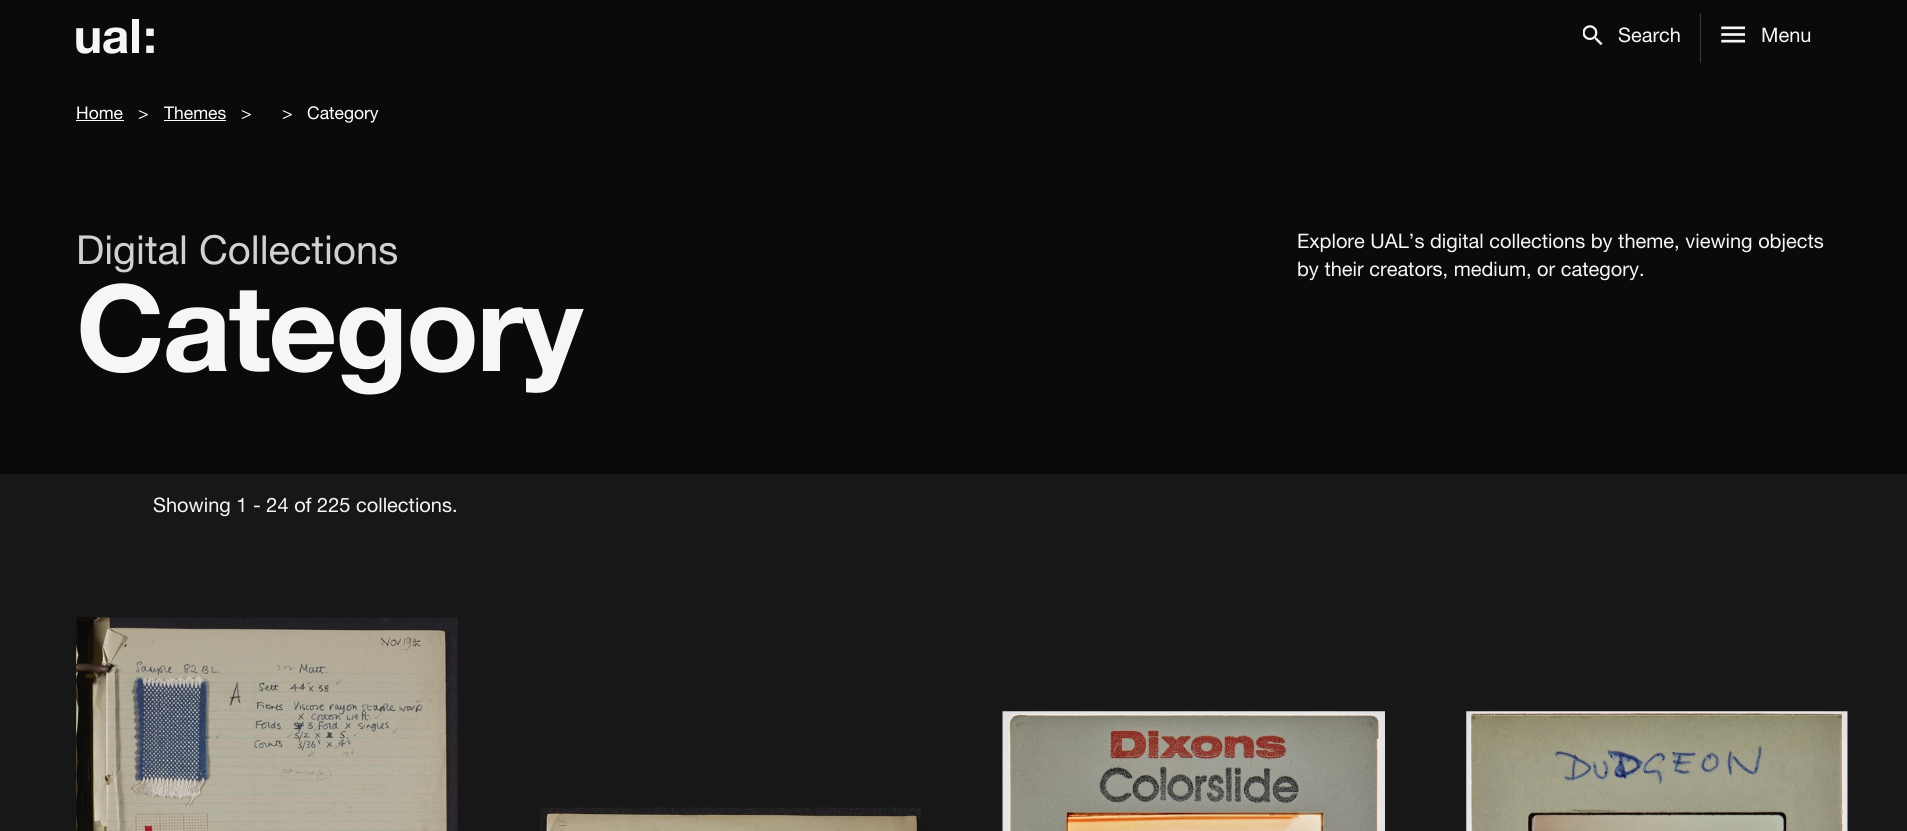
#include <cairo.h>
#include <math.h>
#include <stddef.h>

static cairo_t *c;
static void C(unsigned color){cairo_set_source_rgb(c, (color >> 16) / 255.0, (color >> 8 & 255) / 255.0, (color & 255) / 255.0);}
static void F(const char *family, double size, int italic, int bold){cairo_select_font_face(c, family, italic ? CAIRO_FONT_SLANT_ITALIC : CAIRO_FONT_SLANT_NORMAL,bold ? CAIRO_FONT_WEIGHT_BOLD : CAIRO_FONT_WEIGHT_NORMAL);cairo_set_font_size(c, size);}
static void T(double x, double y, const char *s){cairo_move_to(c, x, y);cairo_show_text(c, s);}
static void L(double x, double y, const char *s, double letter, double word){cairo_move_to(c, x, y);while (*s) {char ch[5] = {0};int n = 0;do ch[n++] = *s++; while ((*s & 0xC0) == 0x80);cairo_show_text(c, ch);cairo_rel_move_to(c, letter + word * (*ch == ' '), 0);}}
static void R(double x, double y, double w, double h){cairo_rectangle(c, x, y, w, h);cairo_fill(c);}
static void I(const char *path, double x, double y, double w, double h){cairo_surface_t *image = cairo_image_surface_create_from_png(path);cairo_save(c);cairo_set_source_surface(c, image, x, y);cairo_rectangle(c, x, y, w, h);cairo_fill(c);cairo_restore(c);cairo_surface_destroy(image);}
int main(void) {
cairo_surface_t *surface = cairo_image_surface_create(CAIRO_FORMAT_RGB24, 1907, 831);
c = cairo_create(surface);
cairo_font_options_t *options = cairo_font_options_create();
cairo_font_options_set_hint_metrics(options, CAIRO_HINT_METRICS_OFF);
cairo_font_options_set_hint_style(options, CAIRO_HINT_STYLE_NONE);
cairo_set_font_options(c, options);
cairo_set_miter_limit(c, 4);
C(0x171717);
cairo_paint(c);
C(0x0a0a0a);
R(0,0,1907,474);
I("1.png",76,19,78,35);
I("2.png",1583,25,20,20);
F("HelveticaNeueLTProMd",20,0,0);
C(0xf6f6f6);
T(1618,42,"Search");
C(0x393939);
R(1700,13,1,50);
I("3.png",1721,26,24,17);
C(0xf6f6f6);
T(1761,42,"Menu");
F("HelveticaNeueLTProMd",17.5,0,0);
C(0xffffff);
T(76,119,"Home");
R(76,120,48,1);
T(138,119,">");
T(164,119,"Themes");
R(164,120,62,1);
T(241,119,">");
T(282,119,">");
T(307,119,"Category");
F("HelveticaNeueLTProMd",40,0,0);
C(0xd1d1d1);
T(76,264,"Digital Collections");
F("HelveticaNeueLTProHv",120,0,0);
C(0xf6f6f6);
L(76,371,"Category",-2.5,0);
F("HelveticaNeueLTProMd",20,0,0);
T(1297,248,"Explore UAL’s digital collections by theme, viewing objects");
T(1297,276,"by their creators, medium, or category.");
T(153,512,"Showing 1 - 24 of 225 collections.");
I("4.png",76,617,382,214);
I("5.png",540,807,382,24);
I("6.png",1002,711,383,120);
I("7.png",1466,711,382,120);
cairo_surface_write_to_png(surface, "o.png");
cairo_font_options_destroy(options);
cairo_destroy(c);
cairo_surface_destroy(surface);
return 0;
}
